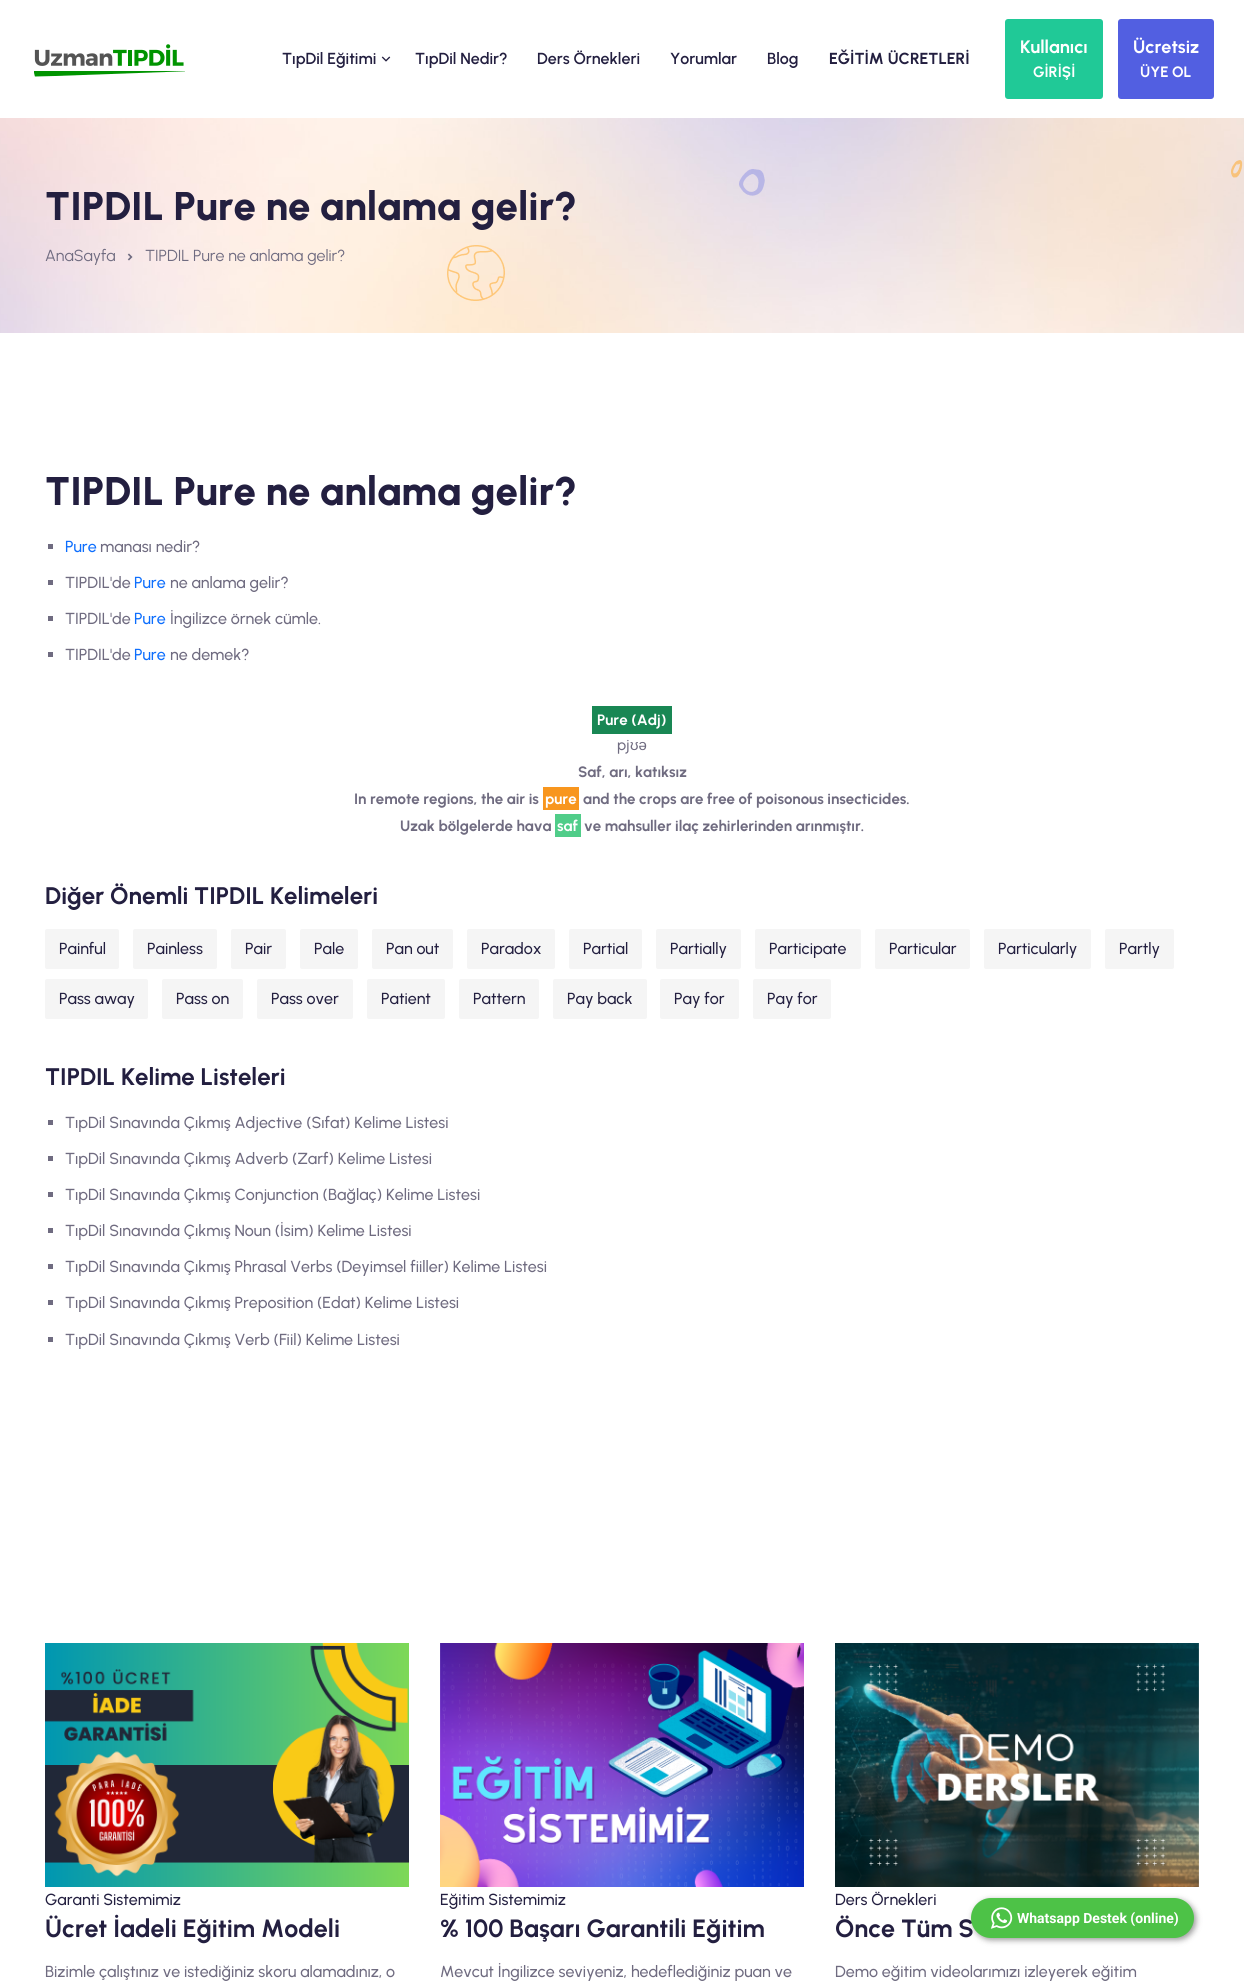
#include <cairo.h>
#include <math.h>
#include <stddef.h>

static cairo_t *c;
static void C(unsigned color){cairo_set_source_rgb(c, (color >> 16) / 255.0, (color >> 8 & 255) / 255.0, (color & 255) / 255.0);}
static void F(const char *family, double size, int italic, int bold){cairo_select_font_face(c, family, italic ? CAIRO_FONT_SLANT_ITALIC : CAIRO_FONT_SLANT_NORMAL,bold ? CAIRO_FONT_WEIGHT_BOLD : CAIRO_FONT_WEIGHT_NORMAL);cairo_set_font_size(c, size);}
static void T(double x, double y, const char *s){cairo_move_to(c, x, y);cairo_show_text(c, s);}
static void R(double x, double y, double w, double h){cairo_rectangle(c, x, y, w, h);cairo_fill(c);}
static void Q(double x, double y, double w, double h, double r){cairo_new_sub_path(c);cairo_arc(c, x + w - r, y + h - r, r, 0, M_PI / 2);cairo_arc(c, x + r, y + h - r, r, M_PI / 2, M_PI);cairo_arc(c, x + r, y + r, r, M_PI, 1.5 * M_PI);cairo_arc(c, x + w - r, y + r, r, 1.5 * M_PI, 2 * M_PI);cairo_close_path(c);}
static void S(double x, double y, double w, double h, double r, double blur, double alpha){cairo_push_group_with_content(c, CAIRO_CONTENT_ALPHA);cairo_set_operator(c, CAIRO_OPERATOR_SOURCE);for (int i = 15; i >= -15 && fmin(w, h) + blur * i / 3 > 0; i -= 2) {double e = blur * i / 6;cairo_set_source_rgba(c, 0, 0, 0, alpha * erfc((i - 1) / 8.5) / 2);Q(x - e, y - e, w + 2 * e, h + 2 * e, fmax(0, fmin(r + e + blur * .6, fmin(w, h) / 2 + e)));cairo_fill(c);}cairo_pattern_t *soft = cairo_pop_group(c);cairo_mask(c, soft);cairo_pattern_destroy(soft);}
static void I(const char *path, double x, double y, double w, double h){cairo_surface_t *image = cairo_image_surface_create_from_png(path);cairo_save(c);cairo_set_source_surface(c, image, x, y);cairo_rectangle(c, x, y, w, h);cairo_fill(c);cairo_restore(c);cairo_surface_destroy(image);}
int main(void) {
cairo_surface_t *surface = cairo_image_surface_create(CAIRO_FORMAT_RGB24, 1244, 1988);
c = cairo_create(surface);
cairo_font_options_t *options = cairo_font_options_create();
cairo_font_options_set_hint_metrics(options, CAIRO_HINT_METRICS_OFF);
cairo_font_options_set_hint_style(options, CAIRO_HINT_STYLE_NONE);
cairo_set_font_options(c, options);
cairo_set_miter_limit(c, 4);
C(0xffffff);
cairo_paint(c);
I("1.png",34,44,151,33);
F("Urbanist SemiBold",16,0,0);
C(0x231f40);
T(282,64,"TıpDil Eğitimi");
I("2.png",381,56,10,6);
T(415,64,"TıpDil Nedir?");
T(537,64,"Ders Örnekleri");
T(670,64,"Yorumlar");
T(767,64,"Blog");
F("Urbanist",16,0,1);
T(829,64,"EĞİTİM ÜCRETLERİ");
C(0x20c997);
Q(1005,19,98,80,3);
cairo_fill(c);
F("Urbanist",18,0,1);
C(0xffffff);
T(1020,53,"Kullanıcı");
F("Urbanist",15,0,1);
T(1033,77,"GİRİŞİ");
C(0x525fe1);
Q(1118,19,96,80,3);
cairo_fill(c);
F("Urbanist",18,0,1);
C(0xffffff);
T(1133,53,"Ücretsiz");
F("Urbanist",15,0,1);
T(1140,77,"ÜYE OL");
I("3.png",0,118,1244,215);
F("Urbanist ExtraBold",40,0,0);
C(0x231f40);
T(45,220,"TIPDIL Pure ne anlama gelir?");
F("Urbanist",16,0,0);
C(0x6f6b80);
T(45,261,"AnaSayfa");
I("4.png",127,253,6,8);
T(145,261,"TIPDIL Pure ne anlama gelir?");
I("5.png",739,169,26,27);
I("6.png",1231,160,12,18);
I("7.png",447,245,58,56);
F("Urbanist ExtraBold",40,0,0);
C(0x231f40);
T(45,505,"TIPDIL Pure ne anlama gelir?");
C(0x6f6b80);
R(48,544,5,5);
F("Urbanist Medium",16,0,0);
C(0x0d6efd);
T(65,552,"Pure");
C(0x6f6b80);
T(100,552,"manası nedir?");
R(48,580,5,5);
T(65,588,"TIPDIL'de");
C(0x0d6efd);
T(134,588,"Pure");
C(0x6f6b80);
T(170,588,"ne anlama gelir?");
R(48,616,5,5);
T(65,624,"TIPDIL'de");
C(0x0d6efd);
T(134,624,"Pure");
C(0x6f6b80);
T(170,624,"İngilizce örnek cümle.");
R(48,652,5,5);
T(65,660,"TIPDIL'de");
C(0x0d6efd);
T(134,660,"Pure");
C(0x6f6b80);
T(170,660,"ne demek?");
C(0x198754);
R(592,706,80,28);
F("Urbanist",15,0,1);
C(0xffffff);
T(597,725,"Pure (Adj)");
F("Urbanist Medium",15,0,0);
C(0x6f6b80);
T(617,750,"pj");
F("Liberation Sans",15,0,0);
T(630,750,"ʊə");
F("Urbanist",15,0,1);
T(578,777,"Saf, arı, katıksız");
T(354,804,"In remote regions, the air is");
C(0xf8961e);
R(543,787,36,23);
C(0xffffff);
T(545,804,"pure");
C(0x6f6b80);
T(583,804,"and the crops are free of poisonous insecticides.");
T(400,831,"Uzak bölgelerde hava");
C(0x50cd89);
R(555,814,26,23);
C(0xffffff);
T(557,831,"saf");
C(0x6f6b80);
T(584,831,"ve mahsuller ilaç zehirlerinden arınmıştır.");
F("Urbanist",24,0,1);
C(0x231f40);
T(45,904,"Diğer Önemli TIPDIL Kelimeleri");
C(0xf5f5f5);
Q(45,929,74,40,2);
cairo_fill(c);
F("Urbanist Medium",16,0,0);
C(0x231f40);
T(59,954,"Painful");
C(0xf5f5f5);
Q(133,929,84,40,2);
cairo_fill(c);
C(0x231f40);
T(147,954,"Painless");
C(0xf5f5f5);
Q(231,929,55,40,2);
cairo_fill(c);
C(0x231f40);
T(245,954,"Pair");
C(0xf5f5f5);
Q(300,929,58,40,2);
cairo_fill(c);
C(0x231f40);
T(314,954,"Pale");
C(0xf5f5f5);
Q(372,929,81,40,2);
cairo_fill(c);
C(0x231f40);
T(386,954,"Pan out");
C(0xf5f5f5);
Q(467,929,88,40,2);
cairo_fill(c);
C(0x231f40);
T(481,954,"Paradox");
C(0xf5f5f5);
Q(569,929,73,40,2);
cairo_fill(c);
C(0x231f40);
T(583,954,"Partial");
C(0xf5f5f5);
Q(656,929,85,40,2);
cairo_fill(c);
C(0x231f40);
T(670,954,"Partially");
C(0xf5f5f5);
Q(755,929,106,40,2);
cairo_fill(c);
C(0x231f40);
T(769,954,"Participate");
C(0xf5f5f5);
Q(875,929,95,40,2);
cairo_fill(c);
C(0x231f40);
T(889,954,"Particular");
C(0xf5f5f5);
Q(984,929,107,40,2);
cairo_fill(c);
C(0x231f40);
T(998,954,"Particularly");
C(0xf5f5f5);
Q(1105,929,69,40,2);
cairo_fill(c);
C(0x231f40);
T(1119,954,"Partly");
C(0xf5f5f5);
Q(45,979,103,40,2);
cairo_fill(c);
C(0x231f40);
T(59,1004,"Pass away");
C(0xf5f5f5);
Q(162,979,81,40,2);
cairo_fill(c);
C(0x231f40);
T(176,1004,"Pass on");
C(0xf5f5f5);
Q(257,979,96,40,2);
cairo_fill(c);
C(0x231f40);
T(271,1004,"Pass over");
C(0xf5f5f5);
Q(367,979,78,40,2);
cairo_fill(c);
C(0x231f40);
T(381,1004,"Patient");
C(0xf5f5f5);
Q(459,979,80,40,2);
cairo_fill(c);
C(0x231f40);
T(473,1004,"Pattern");
C(0xf5f5f5);
Q(553,979,94,40,2);
cairo_fill(c);
C(0x231f40);
T(567,1004,"Pay back");
C(0xf5f5f5);
Q(660,979,79,40,2);
cairo_fill(c);
C(0x231f40);
T(674,1004,"Pay for");
C(0xf5f5f5);
Q(753,979,78,40,2);
cairo_fill(c);
C(0x231f40);
T(767,1004,"Pay for");
F("Urbanist",24,0,1);
T(45,1085,"TIPDIL Kelime Listeleri");
C(0x6f6b80);
R(48,1120,5,5);
F("Urbanist Medium",16,0,0);
T(65,1128,"TıpDil Sınavında Çıkmış Adjective (Sıfat) Kelime Listesi");
R(48,1156,5,5);
T(65,1164,"TıpDil Sınavında Çıkmış Adverb (Zarf) Kelime Listesi");
R(48,1192,5,5);
T(65,1200,"TıpDil Sınavında Çıkmış Conjunction (Bağlaç) Kelime Listesi");
R(48,1228,5,5);
T(65,1236,"TıpDil Sınavında Çıkmış Noun (İsim) Kelime Listesi");
R(48,1264,5,5);
T(65,1272,"TıpDil Sınavında Çıkmış Phrasal Verbs (Deyimsel fiiller) Kelime Listesi");
R(48,1300,5,5);
T(65,1308,"TıpDil Sınavında Çıkmış Preposition (Edat) Kelime Listesi");
R(48,1337,5,5);
T(65,1345,"TıpDil Sınavında Çıkmış Verb (Fiil) Kelime Listesi");
I("8.png",45,1643,364,244);
C(0x231f40);
T(45,1905,"Garanti Sistemimiz");
F("Urbanist",25,0,1);
T(45,1937,"Ücret İadeli Eğitim Modeli");
F("Urbanist Medium",16,0,0);
C(0x6f6b80);
T(45,1977,"Bizimle çalıştınız ve istediğiniz skoru alamadınız, o");
I("9.png",440,1643,364,244);
C(0x231f40);
T(440,1905,"Eğitim Sistemimiz");
F("Urbanist",25,0,1);
T(440,1937,"% 100 Başarı Garantili Eğitim");
F("Urbanist Medium",16,0,0);
C(0x6f6b80);
T(440,1977,"Mevcut İngilizce seviyeniz, hedeflediğiniz puan ve");
I("10.png",835,1643,364,244);
C(0x231f40);
T(835,1905,"Ders Örnekleri");
F("Urbanist",25,0,1);
T(835,1937,"Önce Tüm S");
F("Urbanist Medium",16,0,0);
C(0x6f6b80);
T(835,1977,"Demo eğitim videolarımızı izleyerek eğitim");
C(0x000000);
S(973,1900,223,40,20,3,.4);
C(0x4dc247);
Q(971,1898,223,40,20);
cairo_fill(c);
I("11.png",990,1907,23,22);
F("Roboto",14,0,1);
C(0xffffff);
T(1017,1923,"Whatsapp Destek (online)");
cairo_surface_write_to_png(surface, "o.png");
cairo_font_options_destroy(options);
cairo_destroy(c);
cairo_surface_destroy(surface);
return 0;
}
